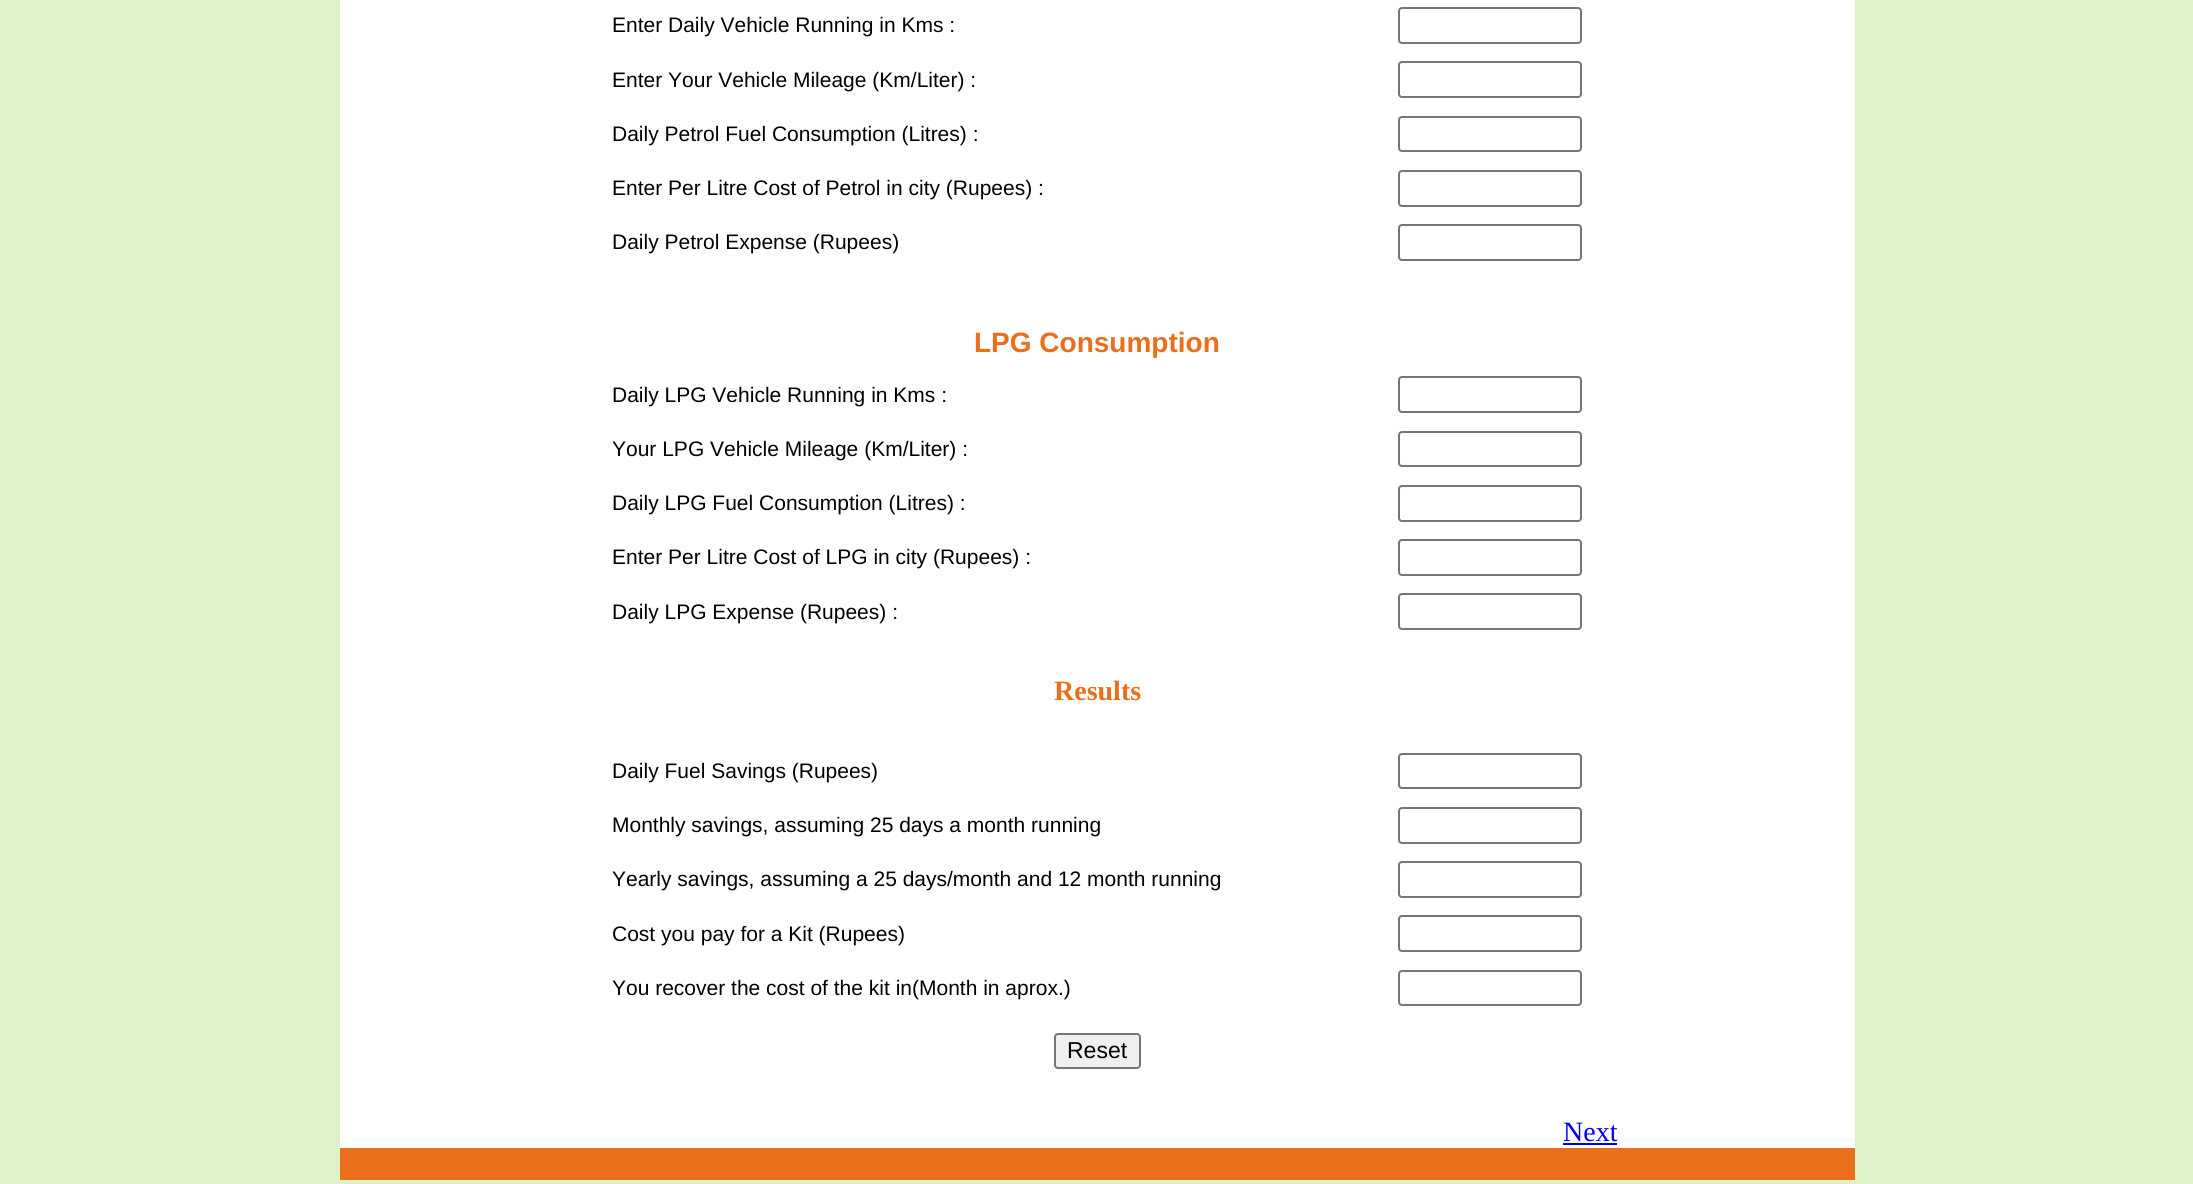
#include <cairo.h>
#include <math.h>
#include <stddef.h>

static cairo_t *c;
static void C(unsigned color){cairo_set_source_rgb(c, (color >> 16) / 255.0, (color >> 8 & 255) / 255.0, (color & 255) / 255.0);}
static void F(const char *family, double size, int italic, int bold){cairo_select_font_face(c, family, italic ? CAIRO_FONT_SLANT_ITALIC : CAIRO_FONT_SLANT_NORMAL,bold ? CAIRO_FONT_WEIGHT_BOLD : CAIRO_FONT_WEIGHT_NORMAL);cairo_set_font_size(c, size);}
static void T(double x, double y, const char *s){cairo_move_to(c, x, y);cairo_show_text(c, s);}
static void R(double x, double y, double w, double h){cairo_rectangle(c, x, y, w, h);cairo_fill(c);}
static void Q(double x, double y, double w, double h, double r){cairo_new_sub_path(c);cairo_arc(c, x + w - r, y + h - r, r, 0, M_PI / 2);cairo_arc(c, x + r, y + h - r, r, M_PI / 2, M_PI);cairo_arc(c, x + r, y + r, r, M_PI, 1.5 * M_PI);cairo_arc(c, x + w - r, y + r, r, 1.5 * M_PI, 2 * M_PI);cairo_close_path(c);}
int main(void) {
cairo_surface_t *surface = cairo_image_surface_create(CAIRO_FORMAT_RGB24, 2193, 1184);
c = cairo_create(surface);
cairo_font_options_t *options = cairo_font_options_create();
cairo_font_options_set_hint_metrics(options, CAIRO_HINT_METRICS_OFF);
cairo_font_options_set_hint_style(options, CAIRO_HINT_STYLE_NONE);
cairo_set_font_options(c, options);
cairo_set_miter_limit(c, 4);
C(0xdef2c7);
cairo_paint(c);
C(0xffffff);
R(340,0,1515,1148);
F("Liberation Sans",21,0,0);
C(0x000000);
T(612,32,"Enter Daily Vehicle Running in Kms :");
Q(1399,8,182,35,3);
C(0x767676);
cairo_stroke(c);
C(0x000000);
T(612,87,"Enter Your Vehicle Mileage (Km/Liter) :");
Q(1399,62,182,35,3);
C(0x767676);
cairo_stroke(c);
C(0x000000);
T(612,141,"Daily Petrol Fuel Consumption (Litres) :");
Q(1399,117,182,34,3);
C(0x767676);
cairo_stroke(c);
C(0x000000);
T(612,195,"Enter Per Litre Cost of Petrol in city (Rupees) :");
Q(1399,171,182,35,3);
C(0x767676);
cairo_stroke(c);
C(0x000000);
T(612,249,"Daily Petrol Expense (Rupees)");
Q(1399,225,182,35,3);
C(0x767676);
cairo_stroke(c);
F("Liberation Sans",28,0,1);
C(0xeb6e1b);
T(974,352,"LPG Consumption");
F("Liberation Sans",21,0,0);
C(0x000000);
T(612,402,"Daily LPG Vehicle Running in Kms :");
Q(1399,377,182,35,3);
C(0x767676);
cairo_stroke(c);
C(0x000000);
T(612,456,"Your LPG Vehicle Mileage (Km/Liter) :");
Q(1399,432,182,34,3);
C(0x767676);
cairo_stroke(c);
C(0x000000);
T(612,510,"Daily LPG Fuel Consumption (Litres) :");
Q(1399,486,182,35,3);
C(0x767676);
cairo_stroke(c);
C(0x000000);
T(612,564,"Enter Per Litre Cost of LPG in city (Rupees) :");
Q(1399,540,182,35,3);
C(0x767676);
cairo_stroke(c);
C(0x000000);
T(612,619,"Daily LPG Expense (Rupees) :");
Q(1399,594,182,35,3);
C(0x767676);
cairo_stroke(c);
F("Liberation Serif",28,0,1);
C(0xeb6e1b);
T(1054,700,"Results");
F("Liberation Sans",21,0,0);
C(0x000000);
T(612,778,"Daily Fuel Savings (Rupees)");
Q(1399,754,182,34,3);
C(0x767676);
cairo_stroke(c);
C(0x000000);
T(612,832,"Monthly savings, assuming 25 days a month running");
Q(1399,808,182,35,3);
C(0x767676);
cairo_stroke(c);
C(0x000000);
T(612,886,"Yearly savings, assuming a 25 days/month and 12 month running");
Q(1399,862,182,35,3);
C(0x767676);
cairo_stroke(c);
C(0x000000);
T(612,941,"Cost you pay for a Kit (Rupees)");
Q(1399,916,182,35,3);
C(0x767676);
cairo_stroke(c);
C(0x000000);
T(612,995,"You recover the cost of the kit in(Month in aprox.)");
Q(1399,971,182,34,3);
C(0x767676);
cairo_stroke(c);
C(0xefefef);
Q(1055,1034,85,34,3);
cairo_fill_preserve(c);
C(0x767676);
cairo_stroke(c);
F("Liberation Sans",23,0,0);
C(0x000000);
T(1067,1058,"Reset");
F("Liberation Serif",28,0,0);
C(0x0000ee);
T(1563,1141,"Next");
R(1563,1143,54,2);
C(0xeb6e1b);
R(340,1148,1515,32);
cairo_surface_write_to_png(surface, "o.png");
cairo_font_options_destroy(options);
cairo_destroy(c);
cairo_surface_destroy(surface);
return 0;
}
